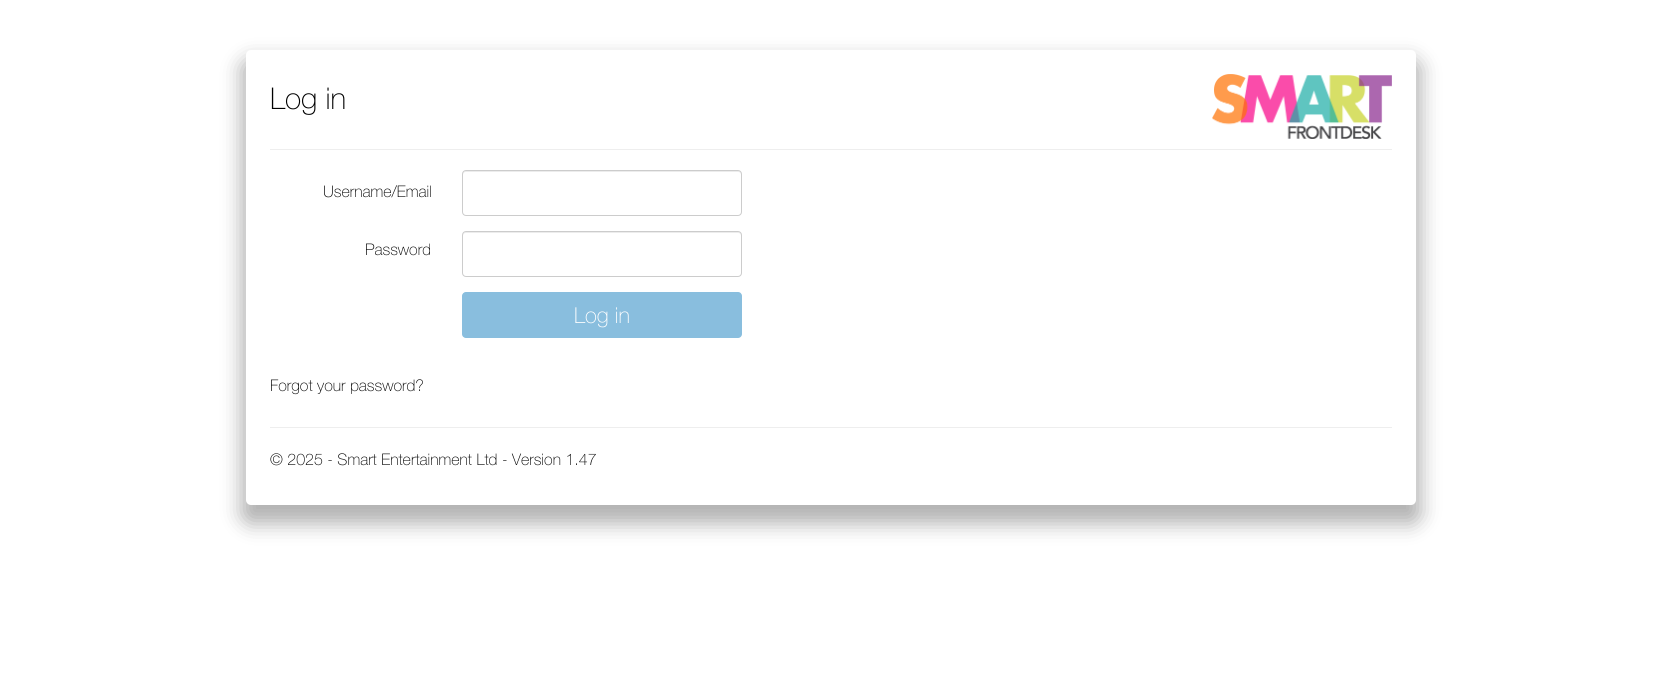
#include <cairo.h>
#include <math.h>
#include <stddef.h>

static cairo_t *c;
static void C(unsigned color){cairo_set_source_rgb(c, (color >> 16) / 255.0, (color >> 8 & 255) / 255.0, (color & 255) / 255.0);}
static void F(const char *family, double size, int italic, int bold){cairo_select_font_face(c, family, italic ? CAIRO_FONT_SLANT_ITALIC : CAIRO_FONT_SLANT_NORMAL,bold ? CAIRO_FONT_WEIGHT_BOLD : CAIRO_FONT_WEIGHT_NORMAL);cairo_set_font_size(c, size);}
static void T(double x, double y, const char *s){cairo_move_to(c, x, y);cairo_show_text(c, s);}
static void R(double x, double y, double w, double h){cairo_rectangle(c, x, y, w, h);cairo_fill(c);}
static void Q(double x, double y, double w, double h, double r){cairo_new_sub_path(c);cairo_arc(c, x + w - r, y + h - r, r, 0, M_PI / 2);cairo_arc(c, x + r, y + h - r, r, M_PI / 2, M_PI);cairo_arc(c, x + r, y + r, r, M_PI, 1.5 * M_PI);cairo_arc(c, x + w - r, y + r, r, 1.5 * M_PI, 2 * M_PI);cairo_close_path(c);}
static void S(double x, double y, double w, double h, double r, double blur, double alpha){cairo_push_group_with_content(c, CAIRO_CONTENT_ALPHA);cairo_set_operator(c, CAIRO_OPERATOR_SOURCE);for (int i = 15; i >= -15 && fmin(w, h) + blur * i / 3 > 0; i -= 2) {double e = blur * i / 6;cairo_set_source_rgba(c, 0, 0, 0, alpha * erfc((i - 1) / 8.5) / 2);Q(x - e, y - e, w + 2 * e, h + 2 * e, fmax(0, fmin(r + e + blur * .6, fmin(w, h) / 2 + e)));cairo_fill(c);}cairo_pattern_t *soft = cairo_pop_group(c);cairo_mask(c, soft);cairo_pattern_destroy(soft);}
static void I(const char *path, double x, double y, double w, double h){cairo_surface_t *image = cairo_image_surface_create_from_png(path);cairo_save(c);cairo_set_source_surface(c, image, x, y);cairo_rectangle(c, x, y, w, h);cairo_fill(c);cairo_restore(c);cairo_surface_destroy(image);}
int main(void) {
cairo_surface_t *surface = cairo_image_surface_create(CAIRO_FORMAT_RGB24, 1661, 694);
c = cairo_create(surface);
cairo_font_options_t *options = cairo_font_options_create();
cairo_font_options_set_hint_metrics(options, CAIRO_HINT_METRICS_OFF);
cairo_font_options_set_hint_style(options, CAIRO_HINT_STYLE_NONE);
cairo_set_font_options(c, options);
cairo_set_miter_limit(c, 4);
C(0xffffff);
cairo_paint(c);
C(0x000000);
S(241,59,1180,465,10,10,.3);
C(0xffffff);
Q(246,50,1170,455,5);
cairo_fill(c);
F("Helvetica Neue Thin",30,0,0);
C(0x000000);
T(270,109,"Log in");
I("1.png",1212,74,180,65);
C(0xeeeeee);
R(270,149,1122,1);
F("Helvetica Neue Thin",16,0,0);
C(0x000000);
T(323,197,"Username/Email");
C(0xececec);
cairo_new_path(c);
cairo_move_to(c,466,172);
cairo_line_to(c,738,172);
cairo_curve_to(c,740,172,741,173,741,175);
cairo_line_to(c,741,174);
cairo_curve_to(c,741,172,740,171,738,171);
cairo_line_to(c,466,171);
cairo_curve_to(c,464,171,463,172,463,174);
cairo_line_to(c,463,175);
cairo_curve_to(c,463,173,464,172,466,172);
cairo_close_path(c);
cairo_fill(c);
Q(462.5,170.5,279,45,3.5);
C(0xcccccc);
cairo_set_line_width(c,1);
cairo_stroke(c);
C(0x000000);
T(365,255,"Password");
C(0xececec);
cairo_new_path(c);
cairo_move_to(c,466,233);
cairo_line_to(c,738,233);
cairo_curve_to(c,740,233,741,234,741,236);
cairo_line_to(c,741,235);
cairo_curve_to(c,741,233,740,232,738,232);
cairo_line_to(c,466,232);
cairo_curve_to(c,464,232,463,233,463,235);
cairo_line_to(c,463,236);
cairo_curve_to(c,463,234,464,233,466,233);
cairo_close_path(c);
cairo_fill(c);
Q(462.5,231.5,279,45,3.5);
C(0xcccccc);
cairo_stroke(c);
C(0x89bede);
Q(462,292,280,46,4);
cairo_fill(c);
F("Helvetica Neue Thin",22,0,0);
C(0xffffff);
T(574,323,"Log in");
F("Helvetica Neue Thin",16,0,0);
C(0x000000);
T(270,391,"Forgot your password?");
C(0xeeeeee);
R(270,427,1122,1);
C(0x000000);
T(270,465,"© 2025 - Smart Entertainment Ltd - Version 1.47");
cairo_surface_write_to_png(surface, "o.png");
cairo_font_options_destroy(options);
cairo_destroy(c);
cairo_surface_destroy(surface);
return 0;
}
